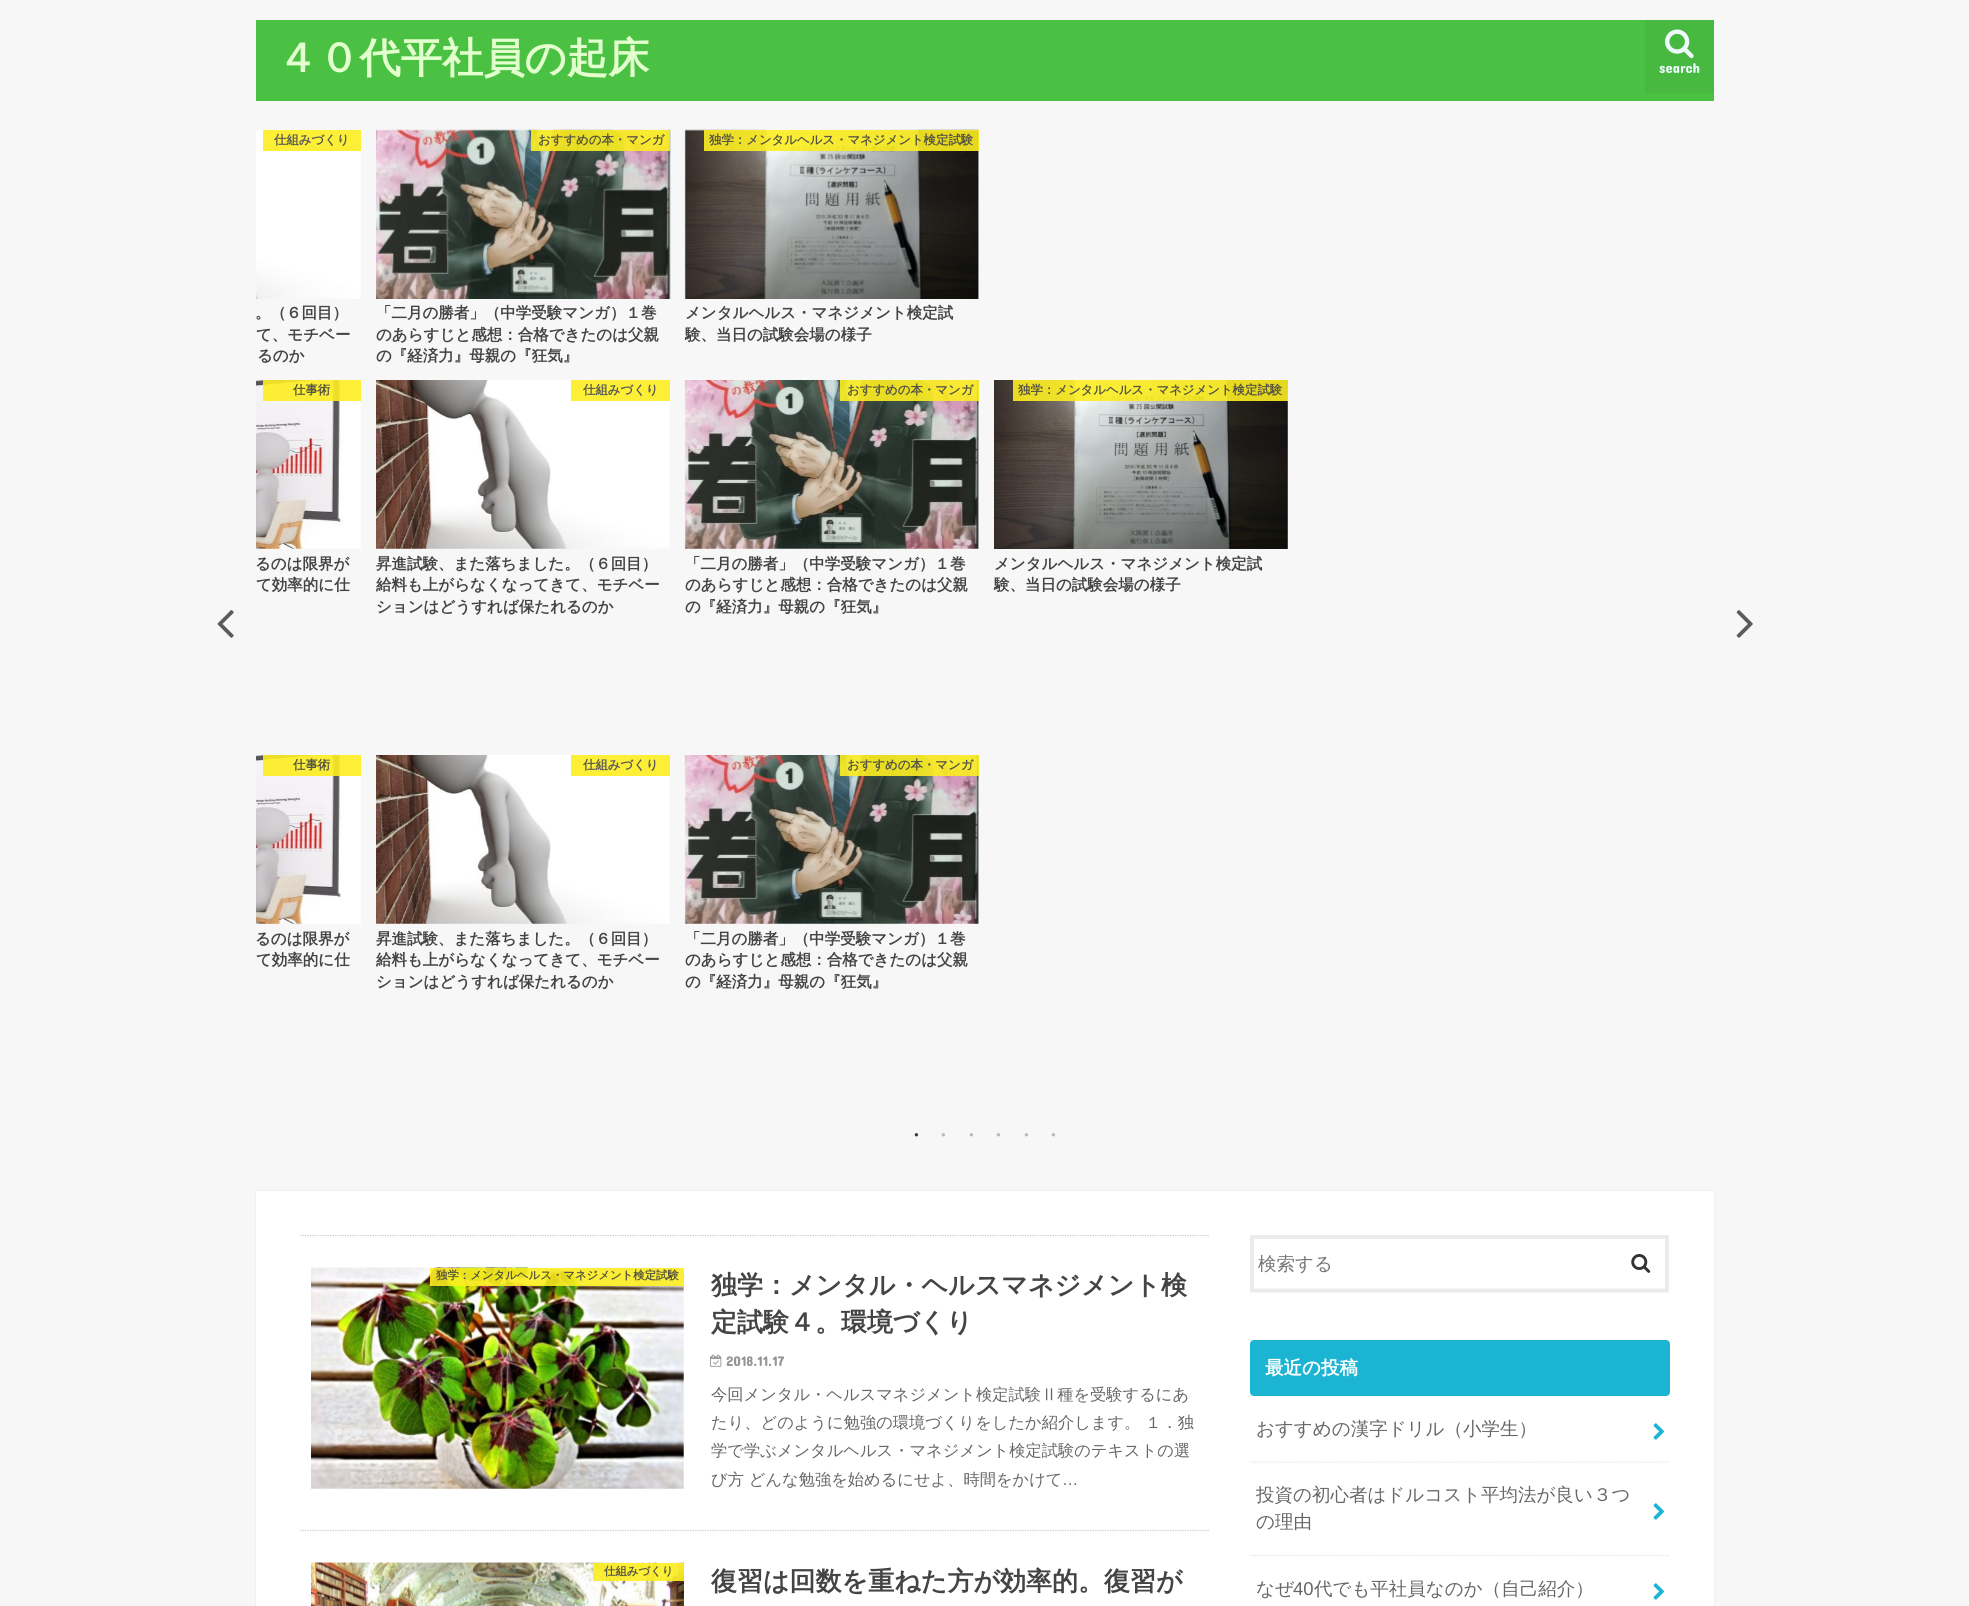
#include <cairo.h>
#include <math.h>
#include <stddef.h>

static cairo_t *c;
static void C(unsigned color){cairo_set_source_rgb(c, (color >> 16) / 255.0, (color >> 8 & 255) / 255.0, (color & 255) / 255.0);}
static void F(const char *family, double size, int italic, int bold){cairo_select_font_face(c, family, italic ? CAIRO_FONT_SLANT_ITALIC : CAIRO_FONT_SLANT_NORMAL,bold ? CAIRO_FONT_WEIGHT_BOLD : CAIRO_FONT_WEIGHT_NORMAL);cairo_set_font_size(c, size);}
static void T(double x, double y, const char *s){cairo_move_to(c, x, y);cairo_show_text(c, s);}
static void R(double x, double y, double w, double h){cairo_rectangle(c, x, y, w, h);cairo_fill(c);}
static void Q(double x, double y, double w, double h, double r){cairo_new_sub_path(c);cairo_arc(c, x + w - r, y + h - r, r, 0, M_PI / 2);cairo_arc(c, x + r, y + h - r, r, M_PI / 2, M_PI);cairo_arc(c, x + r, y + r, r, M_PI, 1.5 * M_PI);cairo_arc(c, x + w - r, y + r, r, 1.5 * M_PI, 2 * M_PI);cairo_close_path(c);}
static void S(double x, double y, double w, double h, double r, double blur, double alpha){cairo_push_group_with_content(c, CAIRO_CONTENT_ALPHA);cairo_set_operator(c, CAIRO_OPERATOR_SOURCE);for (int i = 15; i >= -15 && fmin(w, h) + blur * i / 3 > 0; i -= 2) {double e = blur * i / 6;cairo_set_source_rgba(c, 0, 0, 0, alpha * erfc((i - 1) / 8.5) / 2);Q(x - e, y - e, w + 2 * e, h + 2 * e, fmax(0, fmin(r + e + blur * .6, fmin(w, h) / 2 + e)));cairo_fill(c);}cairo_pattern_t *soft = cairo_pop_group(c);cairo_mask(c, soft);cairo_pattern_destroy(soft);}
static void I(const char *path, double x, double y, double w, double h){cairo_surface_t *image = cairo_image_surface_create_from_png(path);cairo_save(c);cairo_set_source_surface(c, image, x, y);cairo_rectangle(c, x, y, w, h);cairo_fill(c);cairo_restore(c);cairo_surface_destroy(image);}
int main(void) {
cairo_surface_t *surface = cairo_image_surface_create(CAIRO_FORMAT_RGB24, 1969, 1606);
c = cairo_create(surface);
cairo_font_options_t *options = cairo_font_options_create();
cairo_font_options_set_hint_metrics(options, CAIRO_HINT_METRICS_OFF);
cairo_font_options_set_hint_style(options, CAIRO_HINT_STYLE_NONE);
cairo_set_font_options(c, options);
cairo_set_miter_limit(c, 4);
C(0xf7f7f7);
cairo_paint(c);
C(0x4ac143);
R(256,20,1458,81);
F("WenQuanYi Zen Hei",41.25,0,1);
C(0xe3ffce);
T(277,72,"４０代平社員の起床");
C(0x47b940);
R(1645,20,69,73);
I("1.png",1665,29,29,30);
F("Concert One",14.5,0,0);
C(0xedf9fc);
T(1659,73,"search");
I("2.png",217,610,17,28);
I("3.png",256,130,105,169);
cairo_set_source_rgba(c,0.988,0.933,0.129,0.9);
R(263,130,98,21);
F("WenQuanYi Zen Hei",12.4,0,1);
C(0x575757);
T(274,144,"仕組みづくり");
F("WenQuanYi Zen Hei",15.5,0,1);
C(0x444444);
T(255,318,"。（６回目）");
T(256,340,"て、モチベー");
T(257,361,"るのか");
I("4.png",376,129,295,170);
cairo_set_source_rgba(c,0.988,0.933,0.129,0.9);
R(531,130,139,21);
F("WenQuanYi Zen Hei",12.4,0,1);
C(0x555441);
T(538,144,"おすすめの本・マンガ");
F("WenQuanYi Zen Hei",15.5,0,1);
C(0x444444);
T(376,318,"「二月の勝者」（中学受験マンガ）１巻");
T(376,340,"のあらすじと感想：合格できたのは父親");
T(376,361,"の『経済力』母親の『狂気』");
I("5.png",684,129,295,170);
cairo_set_source_rgba(c,0.988,0.933,0.129,0.9);
R(704,130,275,21);
F("WenQuanYi Zen Hei",12.4,0,1);
C(0x555441);
T(709,144,"独学：メンタルヘルス・マネジメント検定試験");
F("WenQuanYi Zen Hei",15.5,0,1);
C(0x444444);
T(685,318,"メンタルヘルス・マネジメント検定試");
T(685,340,"験、当日の試験会場の様子");
I("6.png",256,380,105,169);
cairo_set_source_rgba(c,0.988,0.933,0.129,0.9);
R(263,380,98,21);
F("WenQuanYi Zen Hei",12.4,0,1);
C(0x555441);
T(293,394,"仕事術");
F("WenQuanYi Zen Hei",15.5,0,1);
C(0x444444);
T(255,569,"るのは限界が");
T(256,590,"て効率的に仕");
I("7.png",376,380,294,169);
cairo_set_source_rgba(c,0.988,0.933,0.129,0.9);
R(571,380,99,21);
F("WenQuanYi Zen Hei",12.4,0,1);
C(0x575757);
T(583,394,"仕組みづくり");
F("WenQuanYi Zen Hei",15.5,0,1);
C(0x444444);
T(376,569,"昇進試験、また落ちました。（６回目）");
T(376,590,"給料も上がらなくなってきて、モチベー");
T(376,612,"ションはどうすれば保たれるのか");
I("8.png",684,380,295,169);
cairo_set_source_rgba(c,0.988,0.933,0.129,0.9);
R(840,380,139,21);
F("WenQuanYi Zen Hei",12.4,0,1);
C(0x555441);
T(847,394,"おすすめの本・マンガ");
F("WenQuanYi Zen Hei",15.5,0,1);
C(0x444444);
T(685,569,"「二月の勝者」（中学受験マンガ）１巻");
T(685,590,"のあらすじと感想：合格できたのは父親");
T(685,612,"の『経済力』母親の『狂気』");
I("9.png",994,380,294,169);
cairo_set_source_rgba(c,0.988,0.933,0.129,0.9);
R(1013,380,275,21);
F("WenQuanYi Zen Hei",12.4,0,1);
C(0x555441);
T(1018,394,"独学：メンタルヘルス・マネジメント検定試験");
F("WenQuanYi Zen Hei",15.5,0,1);
C(0x444444);
T(994,569,"メンタルヘルス・マネジメント検定試");
T(994,590,"験、当日の試験会場の様子");
I("6.png",256,755,105,169);
cairo_set_source_rgba(c,0.988,0.933,0.129,0.9);
R(263,755,98,21);
F("WenQuanYi Zen Hei",12.4,0,1);
C(0x555441);
T(293,769,"仕事術");
F("WenQuanYi Zen Hei",15.5,0,1);
C(0x444444);
T(255,944,"るのは限界が");
T(256,965,"て効率的に仕");
I("7.png",376,755,294,169);
cairo_set_source_rgba(c,0.988,0.933,0.129,0.9);
R(571,755,99,21);
F("WenQuanYi Zen Hei",12.4,0,1);
C(0x575757);
T(583,769,"仕組みづくり");
F("WenQuanYi Zen Hei",15.5,0,1);
C(0x444444);
T(376,944,"昇進試験、また落ちました。（６回目）");
T(376,965,"給料も上がらなくなってきて、モチベー");
T(376,987,"ションはどうすれば保たれるのか");
I("8.png",684,755,295,169);
cairo_set_source_rgba(c,0.988,0.933,0.129,0.9);
R(840,755,139,21);
F("WenQuanYi Zen Hei",12.4,0,1);
C(0x555441);
T(847,769,"おすすめの本・マンガ");
F("WenQuanYi Zen Hei",15.5,0,1);
C(0x444444);
T(685,944,"「二月の勝者」（中学受験マンガ）１巻");
T(685,965,"のあらすじと感想：合格できたのは父親");
T(685,987,"の『経済力』母親の『狂気』");
I("10.png",1736,610,17,28);
F("Liberation Sans",8,0,0);
C(0x3e3e3e);
T(914,1137,"●");
C(0xb9b9b9);
T(941,1137,"●");
T(969,1137,"●");
T(996,1137,"●");
T(1024,1137,"●");
T(1051,1137,"●");
C(0xdddddd);
S(256,1191,1458,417,0,.5,1);
C(0xffffff);
R(256,1191,1458,415);
cairo_new_path(c);
cairo_move_to(c,300,1235.5);
cairo_line_to(c,1210,1235.5);
C(0xcccccc);
cairo_set_line_width(c,1.2);
cairo_set_dash(c,(double[]){1.25,1.25},2,0);
cairo_stroke(c);
cairo_new_path(c);
cairo_move_to(c,300,1530.5);
cairo_line_to(c,1210,1530.5);
cairo_stroke(c);
I("11.png",311,1267,373,222);
cairo_set_source_rgba(c,0.988,0.933,0.129,0.9);
R(430,1268,254,18);
F("WenQuanYi Zen Hei",11.4,0,1);
C(0x555441);
T(436,1279,"独学：メンタルヘルス・マネジメント検定試験");
F("WenQuanYi Zen Hei",26,0,1);
C(0x444444);
T(711,1294,"独学：メンタル・ヘルスマネジメント検");
T(711,1331,"定試験４。環境づくり");
I("12.png",710,1354,12,13);
F("Concert One",14,0,0);
C(0x949494);
T(726,1366,"2018.11.17");
F("WenQuanYi Zen Hei Medium",16.25,0,0);
C(0x666666);
T(711,1400,"今回メンタル・ヘルスマネジメント検定試験Ⅱ種を受験するにあ");
T(711,1428,"たり、どのように勉強の環境づくりをしたか紹介します。 １．独");
T(711,1456,"学で学ぶメンタルヘルス・マネジメント検定試験のテキストの選");
T(711,1485,"び方 どんな勉強を始めるにせよ、時間をかけて");
F("Liberation Sans",16.25,0,0);
T(1062,1485,"…");
I("13.png",311,1562,373,44);
cairo_set_source_rgba(c,0.988,0.933,0.129,0.9);
R(593,1563,91,18);
F("WenQuanYi Zen Hei",11.4,0,1);
C(0x555441);
T(604,1575,"仕組みづくり");
F("WenQuanYi Zen Hei",26,0,1);
C(0x444444);
T(711,1590,"復習は回数を重ねた方が効率的。復習が");
cairo_new_path(c);
cairo_move_to(c,1252,1237);
cairo_line_to(c,1667,1237);
cairo_line_to(c,1667,1290.5);
cairo_line_to(c,1252,1290.5);
cairo_close_path(c);
C(0xebebeb);
cairo_set_line_width(c,3.8);
cairo_set_dash(c,NULL,0,0);
cairo_stroke(c);
F("WenQuanYi Zen Hei Medium",18.5,0,0);
C(0x757575);
T(1258,1270,"検索する");
I("14.png",1631,1254,20,19);
C(0x1bb4d3);
Q(1250,1340,420,56,4);
cairo_fill(c);
F("WenQuanYi Zen Hei",18.5,0,1);
C(0xffffff);
T(1265,1374,"最近の投稿");
cairo_new_path(c);
cairo_move_to(c,1250,1462);
cairo_line_to(c,1670,1462);
C(0xe5e5e5);
cairo_set_line_width(c,1.2);
cairo_set_dash(c,(double[]){1.25,1.25},2,0);
cairo_stroke(c);
F("WenQuanYi Zen Hei Medium",18.5,0,0);
C(0x666666);
T(1256,1435,"おすすめの漢字ドリル（小学生）");
I("15.png",1653,1423,12,17);
cairo_new_path(c);
cairo_move_to(c,1250,1555.5);
cairo_line_to(c,1670,1555.5);
C(0xe5e5e5);
cairo_stroke(c);
C(0x666666);
T(1256,1501,"投資の初心者はドルコスト平均法が良い３つ");
T(1256,1528,"の理由");
I("15.png",1653,1503,12,17);
T(1256,1595,"なぜ");
F("Liberation Sans",18.5,0,0);
T(1293,1595,"40");
F("WenQuanYi Zen Hei Medium",18.5,0,0);
T(1314,1595,"代でも平社員なのか（自己紹介）");
I("15.png",1653,1583,12,17);
cairo_surface_write_to_png(surface, "o.png");
cairo_font_options_destroy(options);
cairo_destroy(c);
cairo_surface_destroy(surface);
return 0;
}
